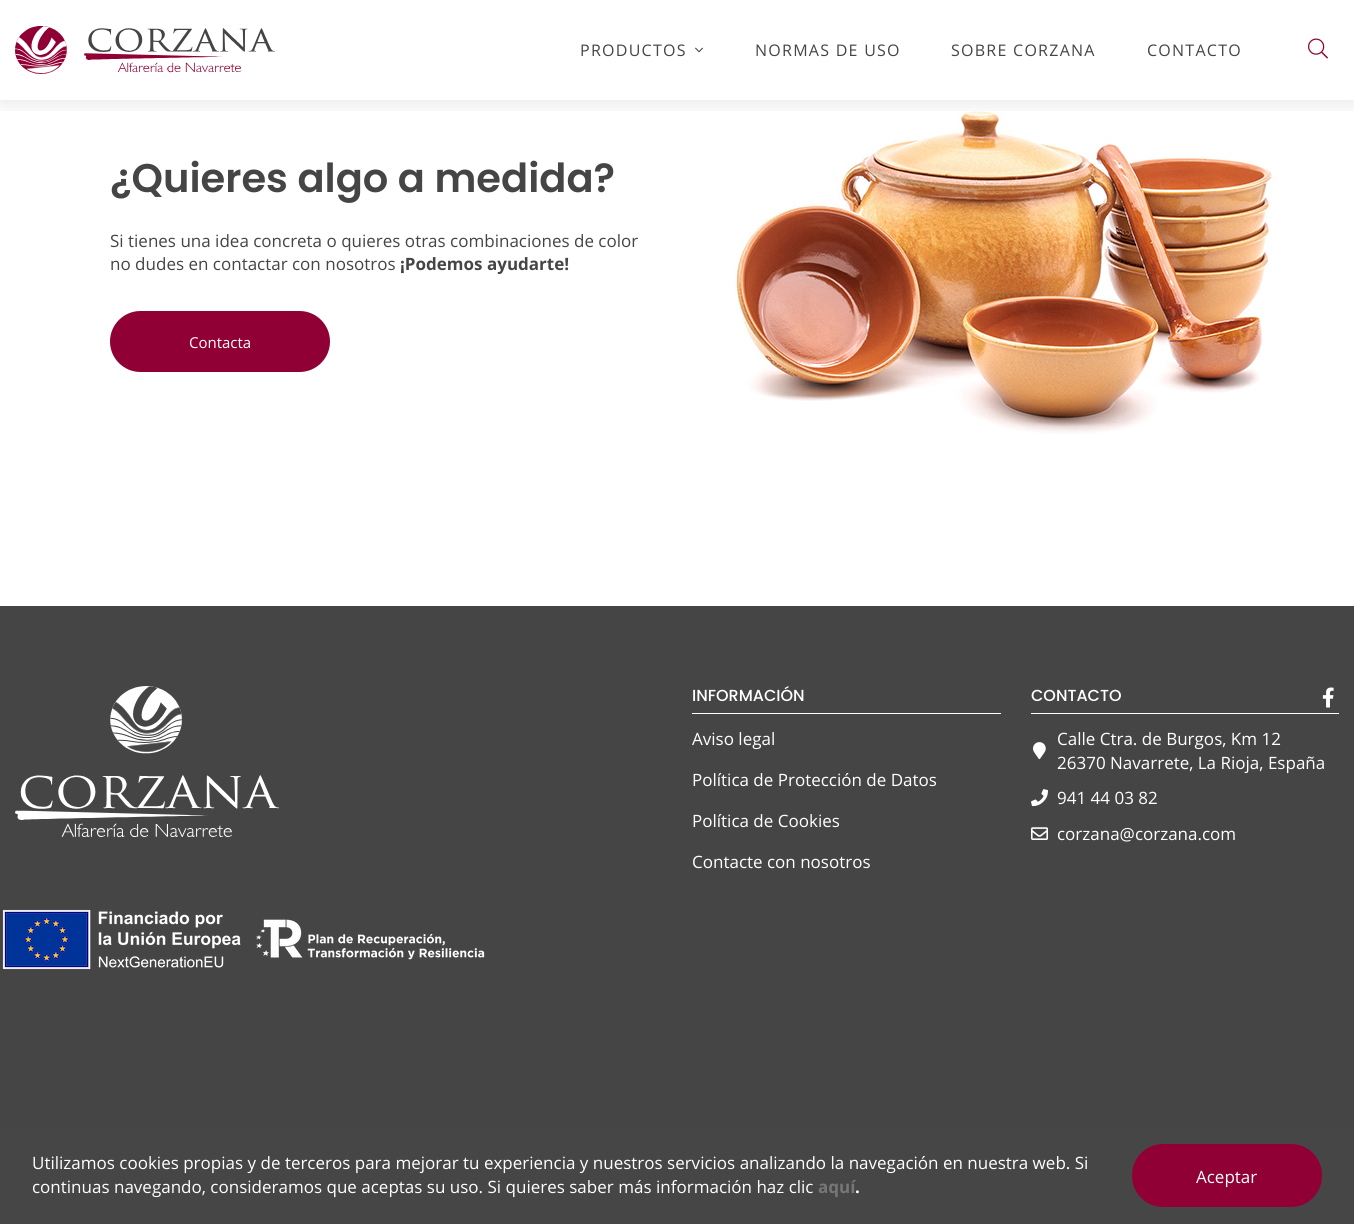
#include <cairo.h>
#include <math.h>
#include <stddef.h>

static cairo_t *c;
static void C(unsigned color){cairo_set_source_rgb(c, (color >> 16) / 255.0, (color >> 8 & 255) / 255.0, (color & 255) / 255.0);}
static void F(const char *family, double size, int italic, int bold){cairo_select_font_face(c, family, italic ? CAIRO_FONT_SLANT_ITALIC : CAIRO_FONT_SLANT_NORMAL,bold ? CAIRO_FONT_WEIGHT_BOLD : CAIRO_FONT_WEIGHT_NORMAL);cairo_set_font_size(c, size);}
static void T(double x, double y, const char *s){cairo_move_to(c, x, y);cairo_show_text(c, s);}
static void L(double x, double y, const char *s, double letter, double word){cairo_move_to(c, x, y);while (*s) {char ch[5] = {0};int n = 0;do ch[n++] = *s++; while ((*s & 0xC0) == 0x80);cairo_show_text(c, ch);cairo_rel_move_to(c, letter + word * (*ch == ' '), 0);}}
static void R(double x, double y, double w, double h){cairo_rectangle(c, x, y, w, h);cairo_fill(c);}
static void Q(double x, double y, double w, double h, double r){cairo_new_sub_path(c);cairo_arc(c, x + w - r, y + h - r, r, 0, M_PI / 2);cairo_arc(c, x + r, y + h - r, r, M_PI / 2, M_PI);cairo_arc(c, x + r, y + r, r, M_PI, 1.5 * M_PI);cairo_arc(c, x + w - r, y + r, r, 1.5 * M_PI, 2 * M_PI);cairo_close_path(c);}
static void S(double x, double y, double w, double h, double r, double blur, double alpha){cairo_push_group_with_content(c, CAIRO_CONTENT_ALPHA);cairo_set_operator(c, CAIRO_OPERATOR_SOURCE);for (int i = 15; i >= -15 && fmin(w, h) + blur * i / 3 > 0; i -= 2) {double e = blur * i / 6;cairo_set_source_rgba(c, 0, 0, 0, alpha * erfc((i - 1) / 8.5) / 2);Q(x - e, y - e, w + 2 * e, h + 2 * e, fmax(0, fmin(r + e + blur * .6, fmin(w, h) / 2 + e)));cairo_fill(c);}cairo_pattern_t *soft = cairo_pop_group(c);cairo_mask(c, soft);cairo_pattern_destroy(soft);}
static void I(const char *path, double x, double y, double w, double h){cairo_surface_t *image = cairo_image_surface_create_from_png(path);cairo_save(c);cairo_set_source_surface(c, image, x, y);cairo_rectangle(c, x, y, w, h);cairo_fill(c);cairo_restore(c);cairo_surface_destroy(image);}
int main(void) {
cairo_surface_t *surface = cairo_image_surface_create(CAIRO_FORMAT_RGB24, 1354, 1224);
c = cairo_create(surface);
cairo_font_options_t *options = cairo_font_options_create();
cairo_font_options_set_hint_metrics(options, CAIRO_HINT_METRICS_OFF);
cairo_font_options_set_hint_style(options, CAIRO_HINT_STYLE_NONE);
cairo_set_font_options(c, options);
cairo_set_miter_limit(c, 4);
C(0xffffff);
cairo_paint(c);
I("4.png",733,111,542,323);
cairo_save(c);
cairo_rectangle(c,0,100,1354,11);
cairo_clip(c);
C(0x000000);
S(0,3,1354,100,0,10,.1);
cairo_restore(c);
I("1.png",15,26,260,48);
F("Open Sans",16,0,0);
C(0x464545);
L(580,56,"PRODUCTOS",1.25,0);
I("2.png",695,47,8,6);
L(755,56,"NORMAS DE USO",1.25,0);
L(951,56,"SOBRE CORZANA",1.25,0);
L(1147,56,"CONTACTO",1.25,0);
I("3.png",1308,38,20,21);
F("Poppins SemiBold",40,0,0);
T(110,192,"¿Quieres algo a medida?");
F("Open Sans",17,0,0);
T(110,247,"Si tienes una idea concreta o quieres otras combinaciones de color");
T(110,270,"no dudes en contactar con nosotros");
F("Open Sans",17,0,1);
T(400,270,"¡Podemos ayudarte!");
C(0x900034);
Q(110,311,220,61,30.5);
cairo_fill(c);
F("Open Sans",15,0,0);
C(0xffffff);
T(189,348,"Contacta");
C(0x464545);
R(0,606,1354,521);
I("5.png",15,686,264,151);
C(0xffffff);
R(692,713,309,1);
F("Poppins Medium",16,0,0);
T(692,701,"INFORMACIÓN");
F("Open Sans",17,0,0);
T(692,745,"Aviso legal");
T(692,786,"Política de Protección de Datos");
T(692,827,"Política de Cookies");
T(692,868,"Contacte con nosotros");
R(1031,713,308,1);
F("Poppins Medium",16,0,0);
T(1031,701,"CONTACTO");
I("6.png",1322,687,12,21);
I("7.png",1033,742,13,18);
F("Open Sans",17,0,0);
T(1057,745,"Calle Ctra. de Burgos, Km 12");
T(1057,769,"26370 Navarrete, La Rioja, España");
I("8.png",1031,789,17,18);
T(1057,804,"941 44 03 82");
I("9.png",1031,827,17,13);
T(1057,840,"corzana@corzana.com");
I("10.png",2,909,239,61);
I("11.png",256,919,229,41);
C(0x464646);
R(0,1127,1354,97);
C(0xffffff);
T(32,1169,"Utilizamos cookies propias y de terceros para mejorar tu experiencia y nuestros servicios analizando la navegación en nuestra web. Si");
T(32,1193,"continuas navegando, consideramos que aceptas su uso. Si quieres saber más información haz clic");
F("Open Sans",17,0,1);
C(0x777777);
T(818,1193,"aquí");
C(0xffffff);
T(855,1193,".");
C(0x900034);
Q(1132,1144,190,63,31);
cairo_fill(c);
F("Open Sans",17,0,0);
C(0xffffff);
T(1196,1183,"Aceptar");
cairo_surface_write_to_png(surface, "o.png");
cairo_font_options_destroy(options);
cairo_destroy(c);
cairo_surface_destroy(surface);
return 0;
}
